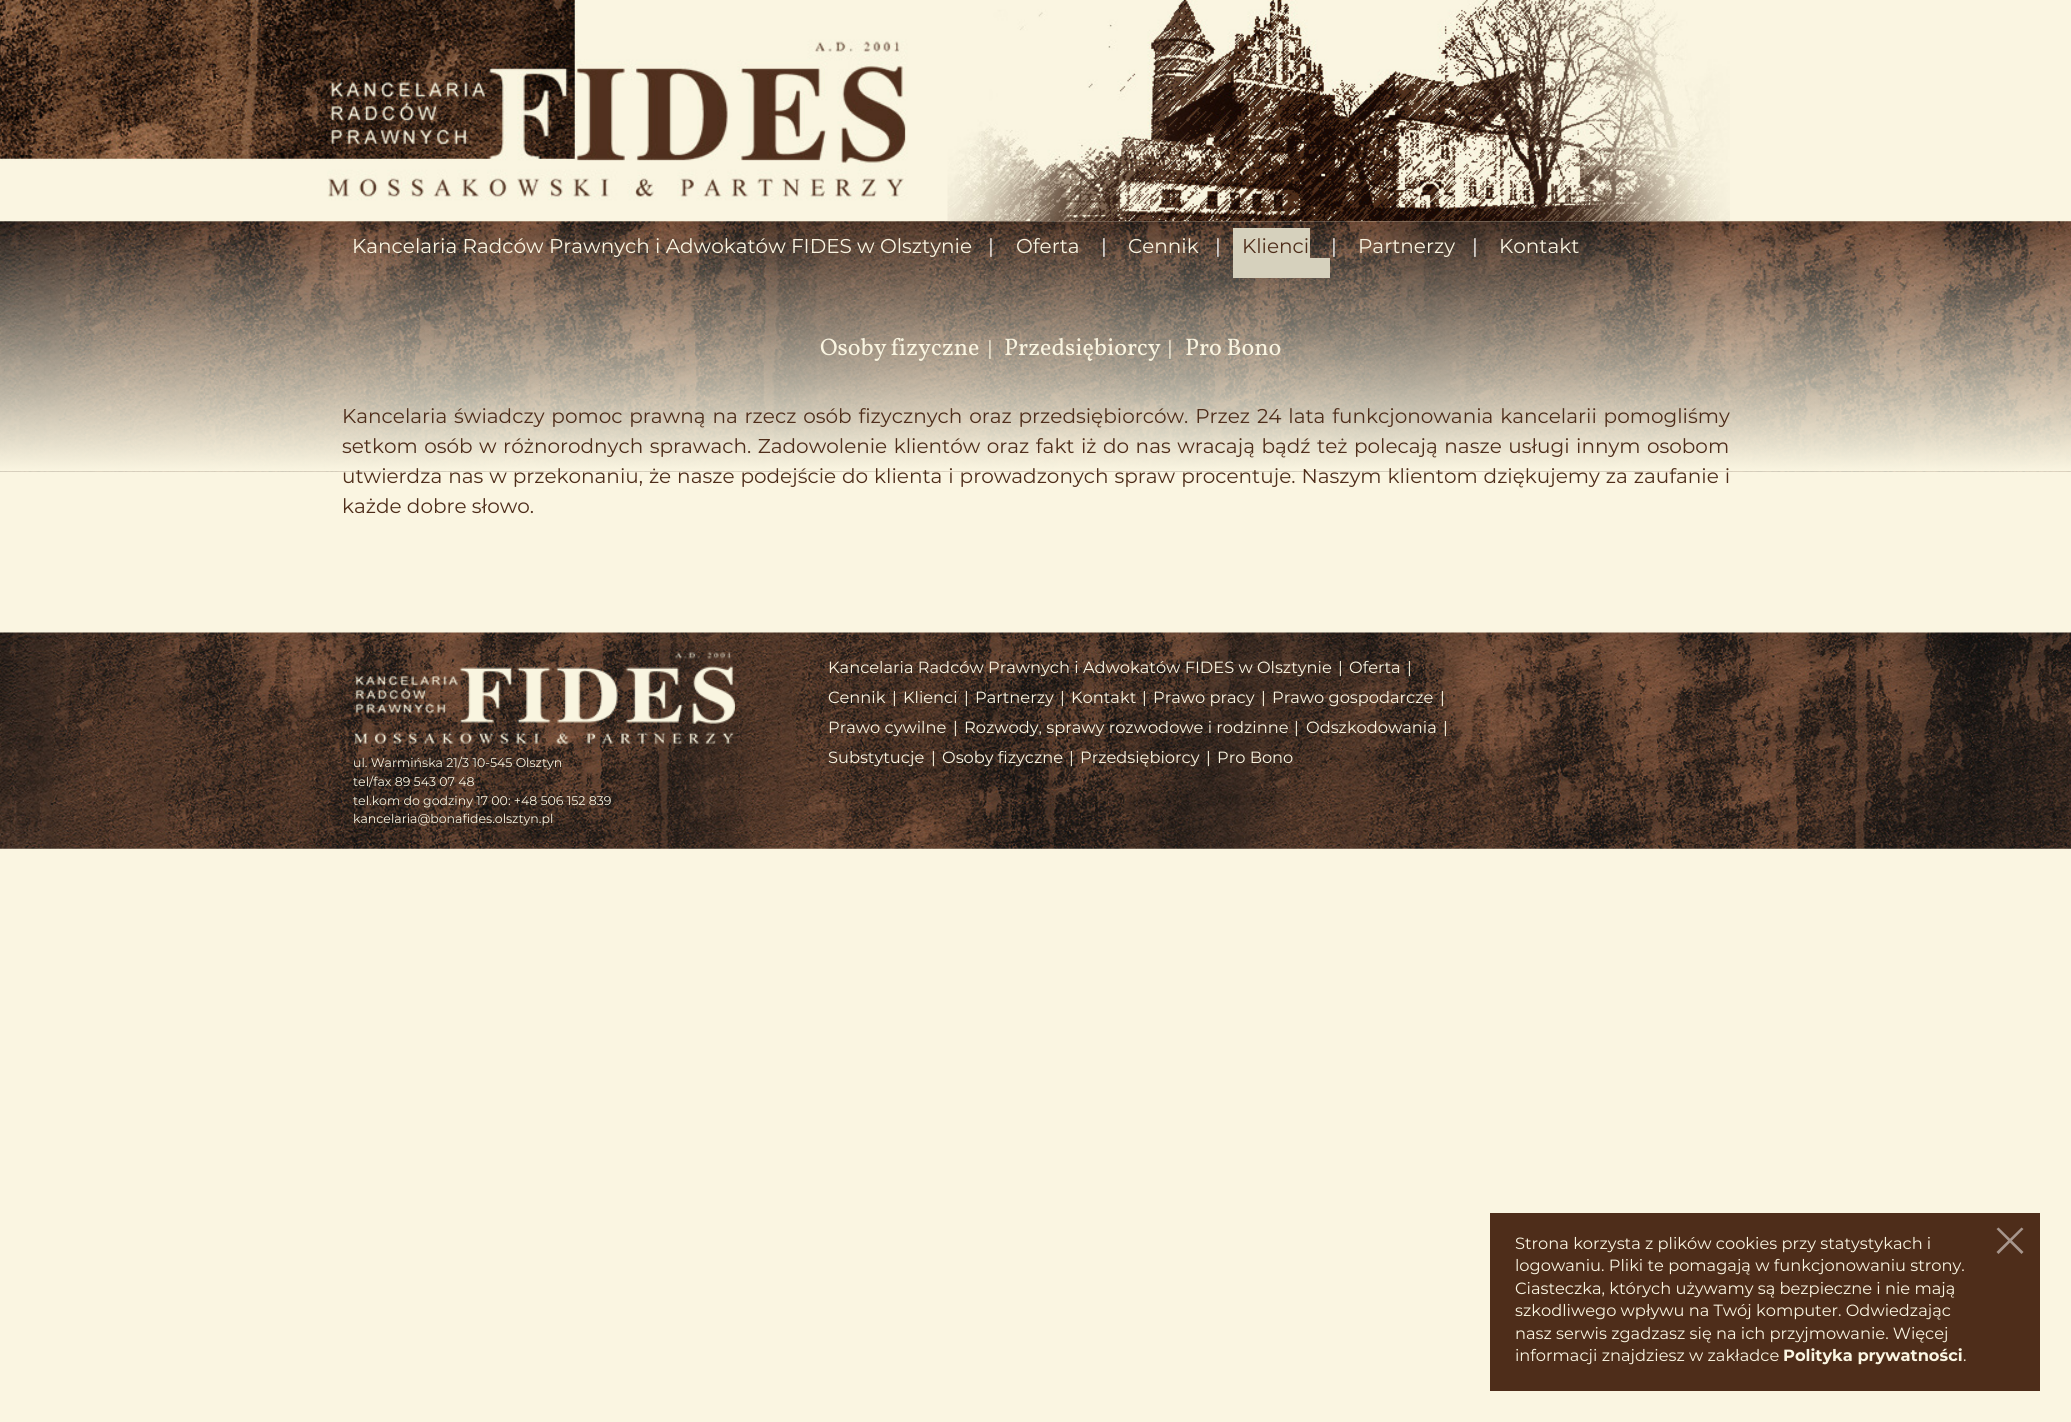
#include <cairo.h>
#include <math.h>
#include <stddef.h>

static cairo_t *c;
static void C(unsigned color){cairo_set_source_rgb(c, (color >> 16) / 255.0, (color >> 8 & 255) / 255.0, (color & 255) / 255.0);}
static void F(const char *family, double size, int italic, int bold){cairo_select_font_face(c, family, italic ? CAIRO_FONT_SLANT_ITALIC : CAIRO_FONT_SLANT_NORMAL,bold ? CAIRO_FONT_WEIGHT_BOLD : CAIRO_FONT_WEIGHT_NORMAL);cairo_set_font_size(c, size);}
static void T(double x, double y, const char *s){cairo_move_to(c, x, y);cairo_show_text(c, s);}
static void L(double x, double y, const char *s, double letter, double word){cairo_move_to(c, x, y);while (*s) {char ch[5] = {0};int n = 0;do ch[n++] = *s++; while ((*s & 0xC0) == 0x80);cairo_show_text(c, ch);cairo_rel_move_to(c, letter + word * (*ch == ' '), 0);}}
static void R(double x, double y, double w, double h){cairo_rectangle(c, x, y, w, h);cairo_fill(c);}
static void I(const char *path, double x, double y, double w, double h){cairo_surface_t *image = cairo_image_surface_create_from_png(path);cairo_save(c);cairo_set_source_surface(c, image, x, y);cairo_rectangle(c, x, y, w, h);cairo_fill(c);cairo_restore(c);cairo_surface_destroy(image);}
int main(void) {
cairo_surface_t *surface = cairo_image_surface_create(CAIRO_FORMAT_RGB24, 2071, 1422);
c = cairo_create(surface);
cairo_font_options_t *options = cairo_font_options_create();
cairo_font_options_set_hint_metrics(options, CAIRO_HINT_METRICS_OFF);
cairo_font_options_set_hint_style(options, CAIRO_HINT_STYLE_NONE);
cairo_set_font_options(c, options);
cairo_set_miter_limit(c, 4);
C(0xfaf5e1);
cairo_paint(c);
I("3.png",0,221,2071,251);
I("1.png",0,0,911,222);
I("2.png",947,0,783,222);
F("Montserrat",20,0,0);
C(0xfaf5e1);
T(352,253,"Kancelaria Radców Prawnych i Adwokatów FIDES w Olsztynie");
C(0xffffff);
T(988,253,"|");
C(0xfaf5e1);
T(1016,253,"Oferta");
C(0xffffff);
T(1101,253,"|");
C(0xfaf5e1);
T(1128,253,"Cennik");
C(0xffffff);
T(1215,253,"|");
C(0xd6d1bd);
R(1233,228,77,30);
C(0x4e2d1a);
T(1242,253,"Klienci");
C(0xd6d1bd);
R(1233,258,97,20);
C(0xffffff);
T(1331,253,"|");
C(0xfaf5e1);
T(1358,253,"Partnerzy");
C(0xffffff);
T(1472,253,"|");
C(0xfaf5e1);
T(1499,253,"Kontakt");
F("Vollkorn",24,0,0);
L(820,355,"Osoby fizyczne",0,-1);
F("Montserrat",20,0,0);
T(987,355,"|");
F("Vollkorn",24,0,0);
T(1004,355,"Przedsiębiorcy");
F("Montserrat",20,0,0);
T(1167,355,"|");
F("Vollkorn",24,0,0);
T(1185,355,"Pro Bono");
F("Montserrat",20,0,0);
C(0x4e2d1a);
L(342,423,"Kancelaria świadczy pomoc prawną na rzecz osób fizycznych oraz przedsiębiorców. Przez 24 lata funkcjonowania kancelarii pomogliśmy",0,1.6);
L(342,453,"setkom osób w różnorodnych sprawach. Zadowolenie klientów oraz fakt iż do nas wracają bądź też polecają nasze usługi innym osobom",0,1.25);
L(342,483,"utwierdza nas w przekonaniu, że nasze podejście do klienta i prowadzonych spraw procentuje. Naszym klientom dziękujemy za zaufanie i",0,.7);
T(342,513,"każde dobre słowo.");
I("4.png",0,632,2071,217);
F("Montserrat",16.25,0,0);
C(0xfaf5e1);
T(828,673,"Kancelaria Radców Prawnych i Adwokatów FIDES w Olsztynie");
T(1338,673,"|");
T(1349,673,"Oferta");
T(1407,673,"|");
T(828,703,"Cennik");
T(892,703,"|");
T(903,703,"Klienci");
T(964,703,"|");
T(975,703,"Partnerzy");
T(1060,703,"|");
T(1071,703,"Kontakt");
T(1142,703,"|");
T(1153,703,"Prawo pracy");
T(1261,703,"|");
T(1272,703,"Prawo gospodarcze");
T(1440,703,"|");
T(828,733,"Prawo cywilne");
T(953,733,"|");
T(964,733,"Rozwody, sprawy rozwodowe i rodzinne");
T(1294,733,"|");
T(1306,733,"Odszkodowania");
T(1443,733,"|");
T(828,763,"Substytucje");
T(931,763,"|");
T(942,763,"Osoby fizyczne");
T(1069,763,"|");
T(1080,763,"Przedsiębiorcy");
T(1206,763,"|");
T(1217,763,"Pro Bono");
I("5.png",354,652,381,92);
F("Montserrat",12.5,0,0);
T(353,767,"ul. Warmińska 21/3 10-545 Olsztyn");
T(353,786,"tel/fax 89 543 07 48");
T(353,805,"tel.kom do godziny 17 00: +48 506 152 839");
T(353,823,"kancelaria@bonafides.olsztyn.pl");
C(0x4e2d1a);
R(1490,1213,550,178);
F("Montserrat",16.25,0,0);
C(0xfaf5e1);
T(1515,1249,"Strona korzysta z plików cookies przy statystykach i");
T(1515,1271,"logowaniu. Pliki te pomagają w funkcjonowaniu strony.");
T(1515,1294,"Ciasteczka, których używamy są bezpieczne i nie mają");
T(1515,1316,"szkodliwego wpływu na Twój komputer. Odwiedzając");
T(1515,1339,"nasz serwis zgadzasz się na ich przyjmowanie. Więcej");
T(1515,1361,"informacji znajdziesz w zakładce");
F("Montserrat",16.25,0,1);
T(1783,1361,"Polityka prywatności");
F("Montserrat",16.25,0,0);
T(1963,1361,".");
C(0xa7968d);
cairo_new_path(c);
cairo_move_to(c,1998.5,1227.5);
cairo_line_to(c,2023.5,1252);
cairo_line_to(c,2021.5,1254);
cairo_line_to(c,1996.5,1229);
cairo_close_path(c);
cairo_fill(c);
cairo_new_path(c);
cairo_move_to(c,1996.5,1252);
cairo_line_to(c,2021.5,1227.5);
cairo_line_to(c,2023.5,1229);
cairo_line_to(c,1998.5,1254);
cairo_close_path(c);
cairo_fill(c);
cairo_surface_write_to_png(surface, "o.png");
cairo_font_options_destroy(options);
cairo_destroy(c);
cairo_surface_destroy(surface);
return 0;
}
